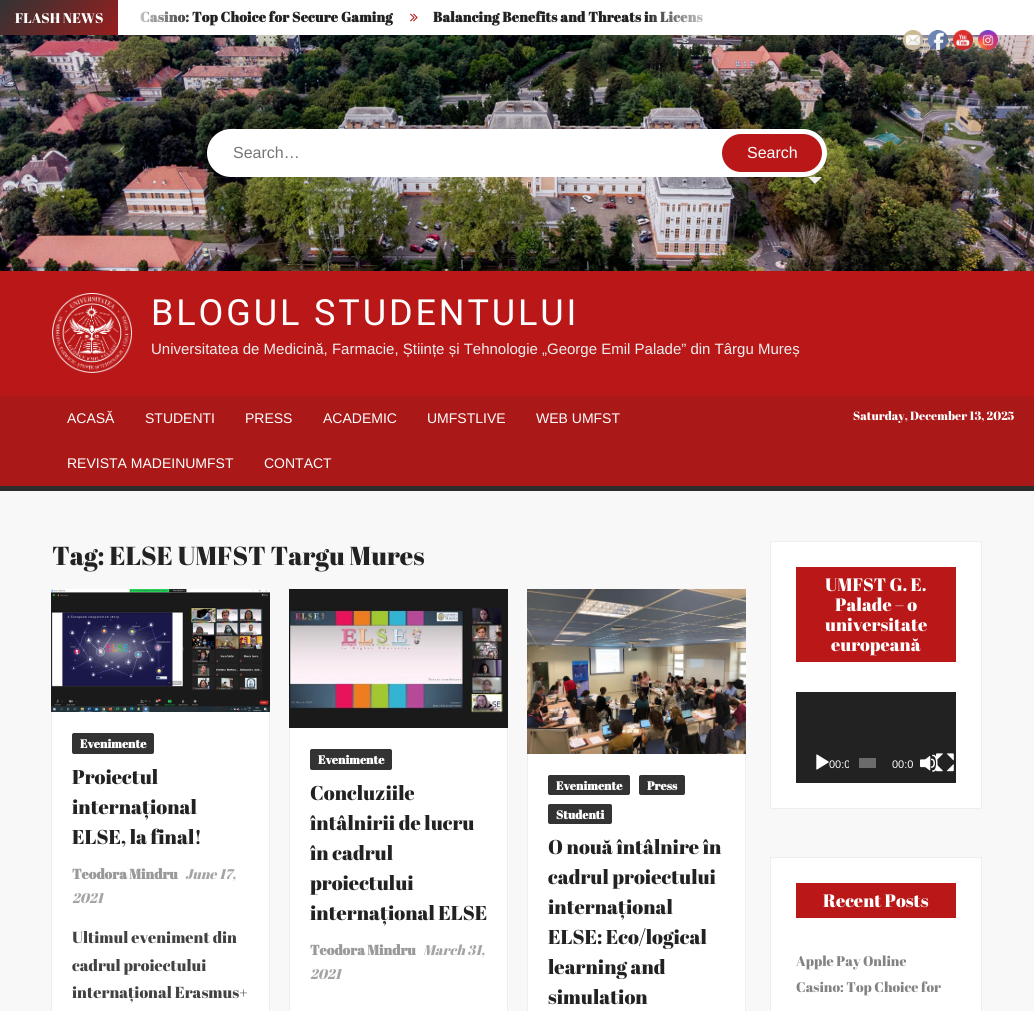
#include <cairo.h>
#include <math.h>
#include <stddef.h>

static cairo_t *c;
static void C(unsigned color){cairo_set_source_rgb(c, (color >> 16) / 255.0, (color >> 8 & 255) / 255.0, (color & 255) / 255.0);}
static void F(const char *family, double size, int italic, int bold){cairo_select_font_face(c, family, italic ? CAIRO_FONT_SLANT_ITALIC : CAIRO_FONT_SLANT_NORMAL,bold ? CAIRO_FONT_WEIGHT_BOLD : CAIRO_FONT_WEIGHT_NORMAL);cairo_set_font_size(c, size);}
static void T(double x, double y, const char *s){cairo_move_to(c, x, y);cairo_show_text(c, s);}
static void L(double x, double y, const char *s, double letter, double word){cairo_move_to(c, x, y);while (*s) {char ch[5] = {0};int n = 0;do ch[n++] = *s++; while ((*s & 0xC0) == 0x80);cairo_show_text(c, ch);cairo_rel_move_to(c, letter + word * (*ch == ' '), 0);}}
static void R(double x, double y, double w, double h){cairo_rectangle(c, x, y, w, h);cairo_fill(c);}
static void Q(double x, double y, double w, double h, double r){cairo_new_sub_path(c);cairo_arc(c, x + w - r, y + h - r, r, 0, M_PI / 2);cairo_arc(c, x + r, y + h - r, r, M_PI / 2, M_PI);cairo_arc(c, x + r, y + r, r, M_PI, 1.5 * M_PI);cairo_arc(c, x + w - r, y + r, r, 1.5 * M_PI, 2 * M_PI);cairo_close_path(c);}
static void I(const char *path, double x, double y, double w, double h){cairo_surface_t *image = cairo_image_surface_create_from_png(path);cairo_save(c);cairo_set_source_surface(c, image, x, y);cairo_rectangle(c, x, y, w, h);cairo_fill(c);cairo_restore(c);cairo_surface_destroy(image);}
int main(void) {
cairo_surface_t *surface = cairo_image_surface_create(CAIRO_FORMAT_RGB24, 1034, 1011);
c = cairo_create(surface);
cairo_font_options_t *options = cairo_font_options_create();
cairo_font_options_set_hint_metrics(options, CAIRO_HINT_METRICS_OFF);
cairo_font_options_set_hint_style(options, CAIRO_HINT_STYLE_NONE);
cairo_set_font_options(c, options);
cairo_set_miter_limit(c, 4);
cairo_pattern_t *gradient;
C(0xf8f8f8);
cairo_paint(c);
C(0xffffff);
R(118,0,916,35);
F("Abril Fatface",14,0,1);
C(0x222222);
L(140,22,"Casino: Top Choice for Secure Gaming",.2,0);
I("1.png",410,13,8,9);
L(433,22,"Balancing Benefits and Threats in Licens",.2,0);
gradient = cairo_pattern_create_linear(389,223,83,-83);
cairo_pattern_add_color_stop_rgba(gradient,0,0.729,0.094,0.094,1);
cairo_pattern_add_color_stop_rgba(gradient,.33,0.933,0.933,0.933,1);
cairo_pattern_add_color_stop_rgba(gradient,.67,0.729,0.094,0.094,1);
cairo_pattern_add_color_stop_rgba(gradient,1,0.2,0.2,0.2,1);
cairo_set_source(c,gradient);
cairo_pattern_destroy(gradient);
R(0,0,118,35);
F("Abril Fatface",14,0,0);
C(0xffffff);
T(15,23,"FLASH NEWS");
gradient = cairo_pattern_create_linear(118,18,198,17);
cairo_pattern_add_color_stop_rgba(gradient,0,1,1,1,1);
cairo_pattern_add_color_stop_rgba(gradient,1,1,1,1,0);
cairo_set_source(c,gradient);
cairo_pattern_destroy(gradient);
R(140,11,56,12);
gradient = cairo_pattern_create_linear(644,18,724,17);
cairo_pattern_add_color_stop_rgba(gradient,0,1,1,1,0);
cairo_pattern_add_color_stop_rgba(gradient,1,1,1,1,1);
cairo_set_source(c,gradient);
cairo_pattern_destroy(gradient);
R(646,11,57,12);
I("2.png",0,35,1034,236);
C(0xffffff);
Q(207,129,620,48,24);
cairo_fill(c);
F("Arimo",16,0,0);
C(0x757575);
T(233,158,"Search…");
C(0xba1818);
Q(722,134,100,38,19);
cairo_fill(c);
C(0xffffff);
T(747,158,"Search");
C(0xeeeeee);
cairo_new_path(c);
cairo_move_to(c,808,177);
cairo_line_to(c,822,177);
cairo_line_to(c,815,184);
cairo_close_path(c);
cairo_fill(c);
C(0xba1818);
R(0,271,1034,125);
I("3.png",52,293,80,80);
F("Heebo",36,0,0);
C(0xffffff);
L(151,325,"BLOGUL STUDENTULUI",2.9,0);
F("Arimo",15,0,0);
C(0xeeeeee);
T(151,354,"Universitatea de Medicină, Farmacie, Științe și Tehnologie „George Emil Palade” din Târgu Mureș");
C(0xaa1818);
R(0,396,1034,90);
C(0x2c2c2c);
R(0,486,1034,5);
F("Arimo",14,0,0);
C(0xffffff);
T(67,423,"ACASĂ");
T(145,423,"STUDENTI");
T(245,423,"PRESS");
T(323,423,"ACADEMIC");
T(427,423,"UMFSTLIVE");
T(536,423,"WEB UMFST");
T(67,468,"REVISTA MADEINUMFST");
T(264,468,"CONTACT");
F("Abril Fatface",12,0,0);
T(853,420,"Saturday, December 13, 2025");
F("Abril Fatface",26,0,0);
C(0x222222);
T(52,565,"Tag: ELSE UMFST Targu Mures");
C(0xffffff);
cairo_rectangle(c,51.5,711.5,218,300);
cairo_fill_preserve(c);
C(0xeeeeee);
cairo_set_line_width(c,1);
cairo_stroke(c);
I("4.png",51,589,219,123);
C(0x333333);
Q(72,733,82,21,2);
cairo_fill(c);
F("Abril Fatface",12,0,1);
C(0xffffff);
T(80,748,"Evenimente");
F("Abril Fatface",20,0,0);
C(0x222222);
T(72,784,"Proiectul");
T(72,814,"internațional");
T(72,844,"ELSE, la final!");
F("Abril Fatface",14,0,1);
C(0x999999);
T(72,879,"Teodora Mindru");
F("Abril Fatface",14,1,0);
C(0xa4a4a4);
T(185,879,"June 17,");
T(72,903,"2021");
F("Abril Fatface",16,0,0);
C(0x424242);
T(72,943,"Ultimul eveniment din");
T(72,971,"cadrul proiectului");
T(72,998,"internațional Erasmus+");
C(0xffffff);
cairo_rectangle(c,289.5,727.5,218,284);
cairo_fill_preserve(c);
C(0xeeeeee);
cairo_stroke(c);
I("5.png",289,589,219,139);
C(0x333333);
Q(310,749,82,21,2);
cairo_fill(c);
F("Abril Fatface",12,0,1);
C(0xffffff);
T(318,764,"Evenimente");
F("Abril Fatface",20,0,0);
C(0x222222);
T(310,800,"Concluziile");
T(310,830,"întâlnirii de lucru");
T(310,860,"în cadrul");
T(310,890,"proiectului");
T(310,920,"internațional ELSE");
F("Abril Fatface",14,0,1);
C(0x999999);
T(310,955,"Teodora Mindru");
F("Abril Fatface",14,1,0);
C(0xa4a4a4);
T(423,955,"March 31,");
T(310,979,"2021");
C(0xffffff);
cairo_rectangle(c,527.5,753.5,218,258);
cairo_fill_preserve(c);
C(0xeeeeee);
cairo_stroke(c);
I("6.png",527,589,219,165);
C(0x333333);
Q(548,775,82,20,2);
cairo_fill(c);
F("Abril Fatface",12,0,1);
C(0xffffff);
T(556,790,"Evenimente");
C(0x333333);
Q(639,775,46,20,2);
cairo_fill(c);
C(0xffffff);
T(647,790,"Press");
C(0x333333);
Q(548,804,64,20,2);
cairo_fill(c);
C(0xffffff);
T(556,819,"Studenti");
F("Abril Fatface",20,0,0);
C(0x222222);
T(548,854,"O nouă întâlnire în");
T(548,884,"cadrul proiectului");
T(548,914,"internațional");
T(548,944,"ELSE: Eco/logical");
T(548,974,"learning and");
T(548,1004,"simulation");
C(0xffffff);
cairo_rectangle(c,770.5,541.5,211,267);
cairo_fill_preserve(c);
C(0xeeeeee);
cairo_stroke(c);
C(0xba1818);
R(796,567,160,95);
F("Abril Fatface",18,0,0);
C(0xffffff);
T(825,591,"UMFST G. E.");
T(835,611,"Palade – o");
T(825,631,"universitate");
T(831,651,"europeană");
C(0x222222);
R(796,692,160,91);
cairo_save(c);
cairo_rectangle(c,823,743,26,40);
cairo_clip(c);
F("Liberation Sans",11,0,0);
C(0xffffff);
T(829,768,"00:0");
cairo_restore(c);
I("7.png",816,754,13,16);
C(0x6b6b6b);
R(859,758,17,10);
F("Liberation Sans",11,0,0);
C(0xffffff);
T(892,768,"00:0");
I("8.png",920,754,18,18);
I("9.png",936,753,18,19);
cairo_rectangle(c,770.5,857.5,211,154);
cairo_fill_preserve(c);
C(0xeeeeee);
cairo_stroke(c);
C(0xba1818);
R(796,883,160,35);
F("Abril Fatface",18,0,0);
C(0xffffff);
T(823,907,"Recent Posts");
F("Abril Fatface",14,0,0);
C(0x838383);
T(796,966,"Apple Pay Online");
T(796,992,"Casino: Top Choice for");
I("10.png",903,30,20,20);
I("11.png",928,30,20,20);
I("12.png",953,30,20,20);
I("13.png",978,30,20,20);
cairo_surface_write_to_png(surface, "o.png");
cairo_font_options_destroy(options);
cairo_destroy(c);
cairo_surface_destroy(surface);
return 0;
}
